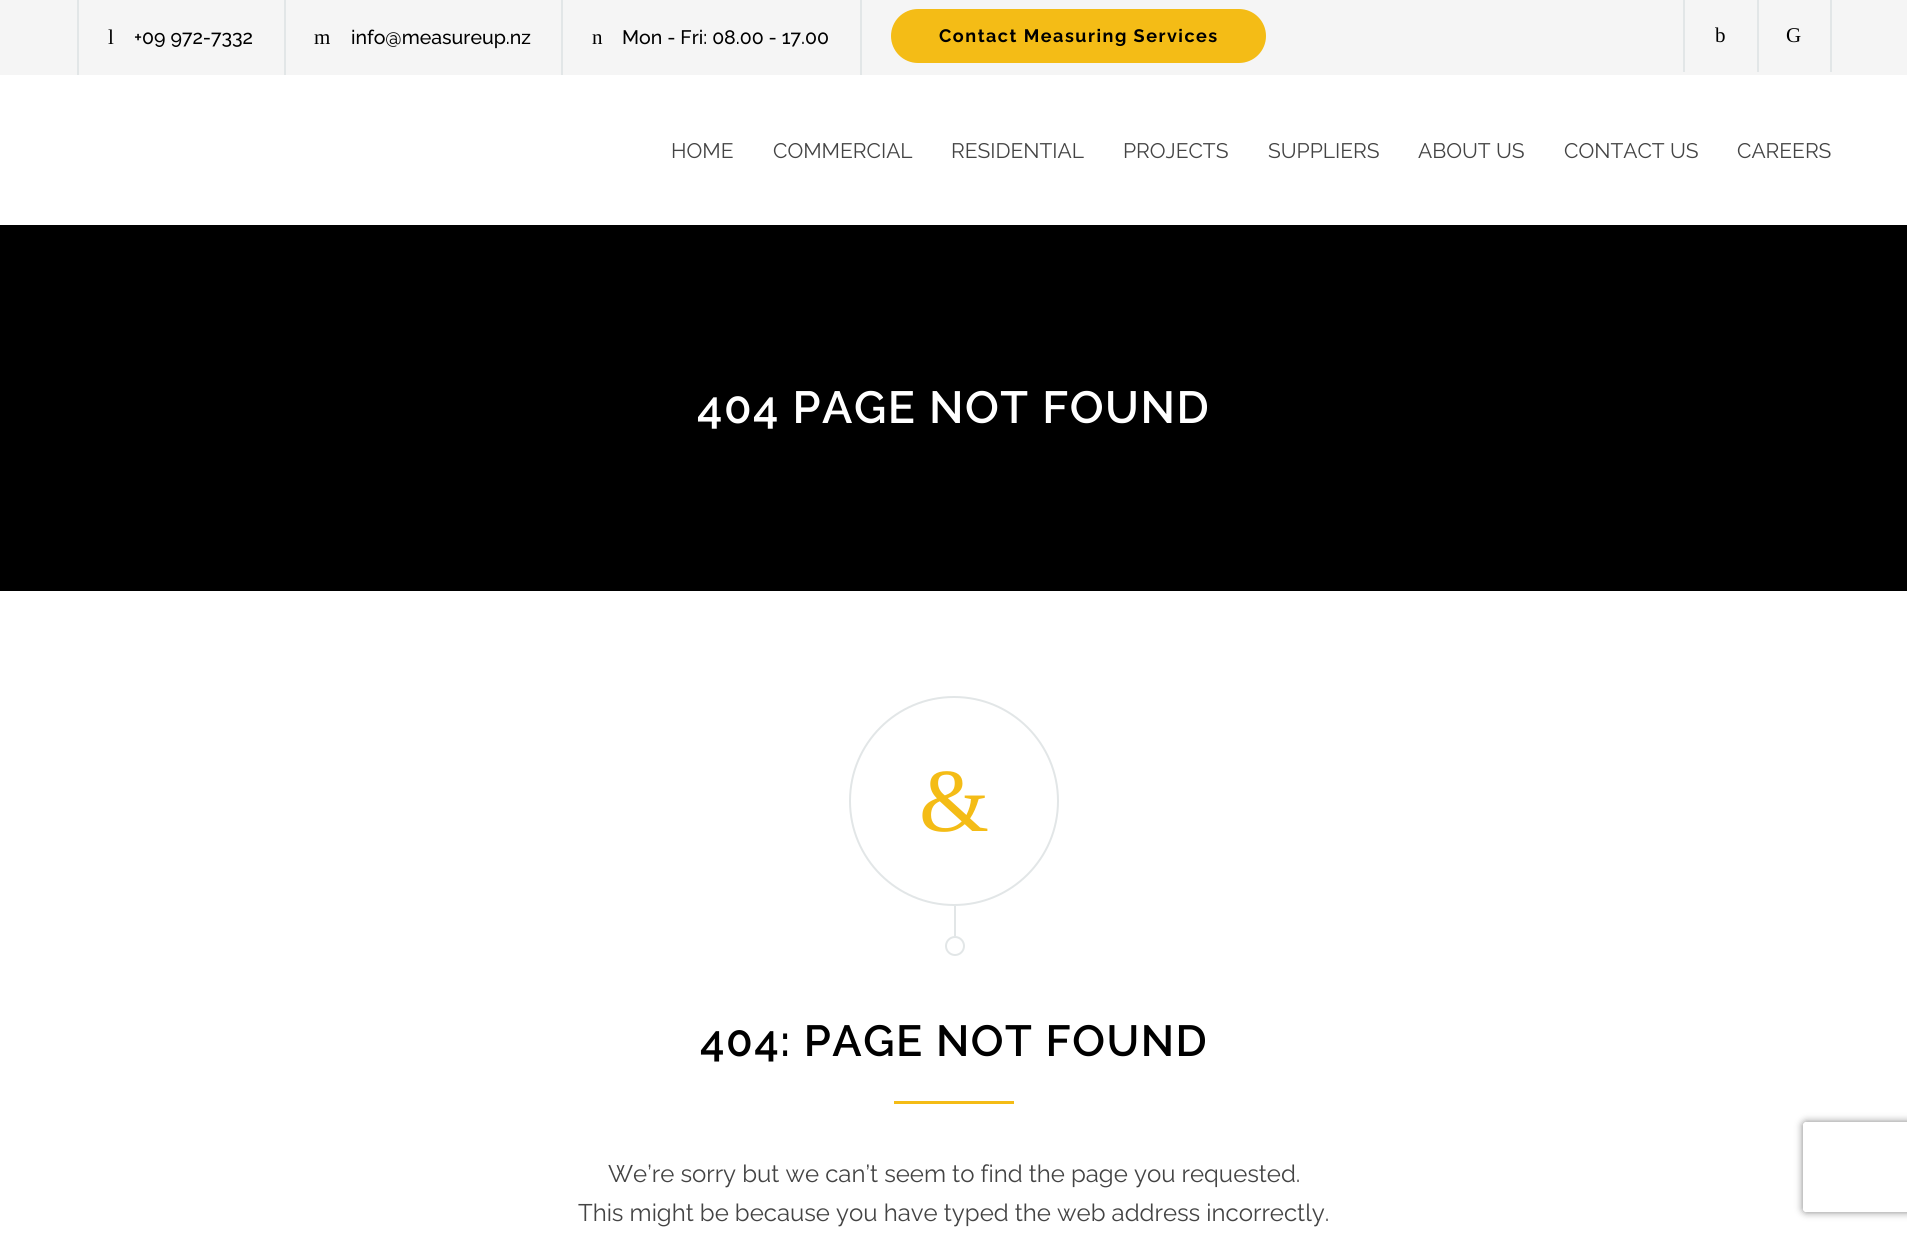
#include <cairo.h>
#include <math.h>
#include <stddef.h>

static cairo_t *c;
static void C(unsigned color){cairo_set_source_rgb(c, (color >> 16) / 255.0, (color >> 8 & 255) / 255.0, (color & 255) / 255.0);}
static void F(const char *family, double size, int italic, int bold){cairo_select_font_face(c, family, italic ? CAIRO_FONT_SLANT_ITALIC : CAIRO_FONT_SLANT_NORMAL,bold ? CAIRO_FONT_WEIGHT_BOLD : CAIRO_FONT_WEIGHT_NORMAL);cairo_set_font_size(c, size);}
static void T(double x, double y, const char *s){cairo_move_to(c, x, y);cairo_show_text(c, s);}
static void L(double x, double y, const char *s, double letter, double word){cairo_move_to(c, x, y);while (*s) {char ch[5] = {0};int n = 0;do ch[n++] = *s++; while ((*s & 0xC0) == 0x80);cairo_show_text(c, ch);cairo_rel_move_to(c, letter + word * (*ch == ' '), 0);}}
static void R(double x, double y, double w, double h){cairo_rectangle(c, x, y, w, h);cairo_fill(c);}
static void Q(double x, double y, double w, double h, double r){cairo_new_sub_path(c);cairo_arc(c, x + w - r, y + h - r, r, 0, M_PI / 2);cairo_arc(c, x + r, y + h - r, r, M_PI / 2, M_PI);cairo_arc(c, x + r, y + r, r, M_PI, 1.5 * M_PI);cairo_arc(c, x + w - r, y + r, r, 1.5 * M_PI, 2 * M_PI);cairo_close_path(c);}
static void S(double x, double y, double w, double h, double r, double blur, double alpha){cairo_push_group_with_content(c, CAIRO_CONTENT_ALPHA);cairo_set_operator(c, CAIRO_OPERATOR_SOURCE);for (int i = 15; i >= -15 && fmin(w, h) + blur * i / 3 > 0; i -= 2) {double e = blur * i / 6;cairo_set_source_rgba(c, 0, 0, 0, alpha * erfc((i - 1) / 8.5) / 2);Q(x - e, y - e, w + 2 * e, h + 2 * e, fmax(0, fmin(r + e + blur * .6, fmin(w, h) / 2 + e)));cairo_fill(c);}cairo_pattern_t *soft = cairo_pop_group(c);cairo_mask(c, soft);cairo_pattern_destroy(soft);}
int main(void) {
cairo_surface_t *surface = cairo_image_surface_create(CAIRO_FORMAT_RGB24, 1907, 1233);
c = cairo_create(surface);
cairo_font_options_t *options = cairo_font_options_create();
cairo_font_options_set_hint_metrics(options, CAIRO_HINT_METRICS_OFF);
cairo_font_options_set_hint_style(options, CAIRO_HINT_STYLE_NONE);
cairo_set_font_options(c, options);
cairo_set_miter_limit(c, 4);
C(0xffffff);
cairo_paint(c);
C(0xf5f5f5);
R(0,0,1907,75);
C(0xe2e6e7);
R(284,0,2,75);
R(77,0,2,75);
F("Liberation Serif",21,0,0);
C(0x000000);
T(108,44,"l");
F("Raleway Medium",19.5,0,0);
T(134,44,"+09 972-7332");
C(0xe2e6e7);
R(561,0,2,75);
F("Liberation Serif",21,0,0);
C(0x000000);
T(314,44,"m");
F("Raleway Medium",19.5,0,0);
T(351,44,"info@measureup.nz");
C(0xe2e6e7);
R(860,0,2,75);
F("Liberation Serif",21,0,0);
C(0x000000);
T(592,44,"n");
F("Raleway Medium",19.5,0,0);
T(622,44,"Mon - Fri: 08.00 - 17.00");
C(0xf4bc16);
Q(892.5,10.5,372,51,25.5);
cairo_fill_preserve(c);
cairo_set_line_width(c,3);
cairo_stroke(c);
F("Raleway",18,0,1);
C(0x000000);
L(939,42,"Contact Measuring Services",1.5,0);
C(0xe2e6e7);
R(1757,0,2,72);
R(1683,0,2,72);
F("Liberation Serif",21,0,0);
C(0x000000);
T(1715,42,"b");
C(0xe2e6e7);
R(1830,0,2,72);
C(0x000000);
T(1786,42,"G");
F("Raleway",21,0,0);
C(0x444444);
T(671,158,"HOME");
T(773,158,"COMMERCIAL");
T(951,158,"RESIDENTIAL");
T(1123,158,"PROJECTS");
T(1268,158,"SUPPLIERS");
T(1418,158,"ABOUT US");
T(1564,158,"CONTACT US");
T(1737,158,"CAREERS");
C(0x000000);
R(0,225,1907,366);
F("Raleway SemiBold",45,0,0);
C(0xffffff);
L(697,423,"404 PAGE NOT FOUND",1.5,0);
cairo_new_path(c);
cairo_arc(c,954,801,104,0,2 * M_PI);
C(0xe2e6e7);
cairo_set_line_width(c,2);
cairo_stroke(c);
F("Liberation Serif",90,0,0);
C(0xf4bc16);
T(919,831,"&");
C(0xe2e6e7);
R(954,906,2,30);
cairo_new_path(c);
cairo_arc(c,955,946,9,0,2 * M_PI);
cairo_stroke(c);
F("Raleway SemiBold",43.5,0,0);
C(0x000000);
L(700,1056,"404: PAGE NOT FOUND",1.5,0);
C(0xf4bc16);
R(894,1101,120,3);
F("Raleway",24,0,0);
C(0x444444);
T(608,1182,"We’re sorry but we can’t seem to find the page you requested.");
T(578,1221,"This might be because you have typed the web address incorrectly.");
cairo_save(c);
cairo_set_fill_rule(c,CAIRO_FILL_RULE_EVEN_ODD);
cairo_new_path(c);
cairo_move_to(c,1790,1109);
cairo_line_to(c,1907,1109);
cairo_line_to(c,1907,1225);
cairo_line_to(c,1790,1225);
cairo_close_path(c);
cairo_move_to(c,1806,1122);
cairo_line_to(c,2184,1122);
cairo_curve_to(c,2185.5,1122,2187,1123.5,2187,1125);
cairo_line_to(c,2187,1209);
cairo_curve_to(c,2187,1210.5,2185.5,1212,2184,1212);
cairo_line_to(c,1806,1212);
cairo_curve_to(c,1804.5,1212,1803,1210.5,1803,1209);
cairo_line_to(c,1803,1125);
cairo_curve_to(c,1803,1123.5,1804.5,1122,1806,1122);
cairo_close_path(c);
cairo_clip(c);
C(0x808080);
S(1803,1122,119,90,3,4,1);
cairo_restore(c);
cairo_surface_write_to_png(surface, "o.png");
cairo_font_options_destroy(options);
cairo_destroy(c);
cairo_surface_destroy(surface);
return 0;
}
